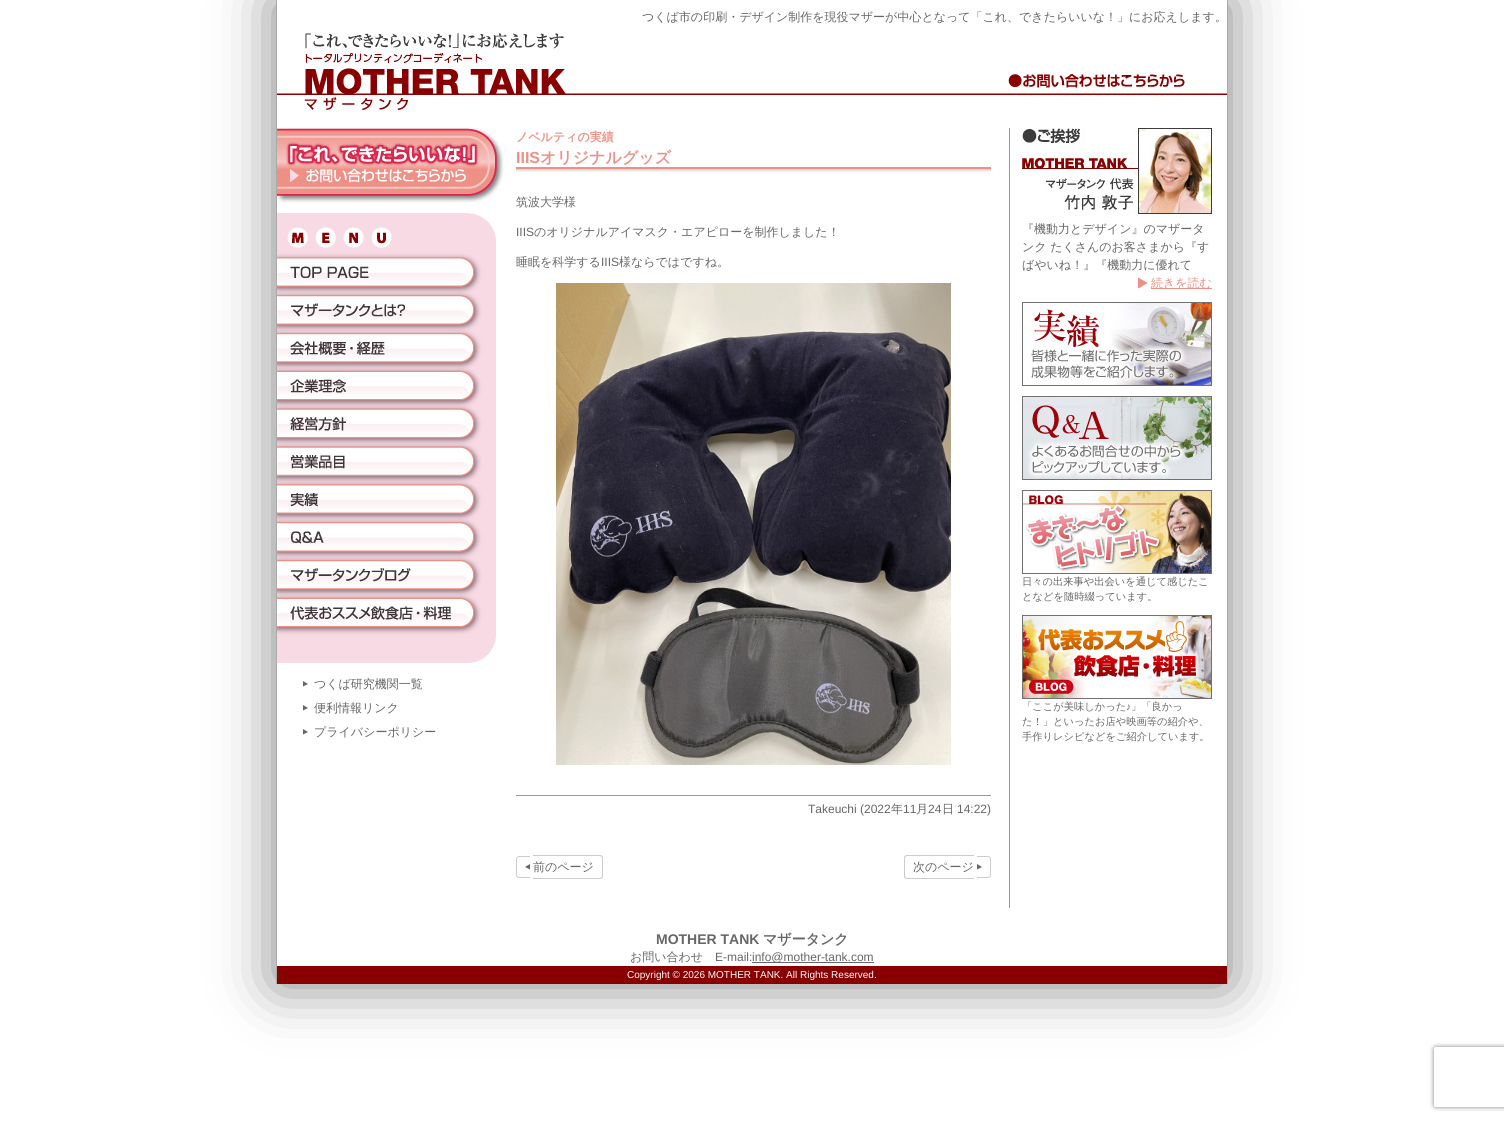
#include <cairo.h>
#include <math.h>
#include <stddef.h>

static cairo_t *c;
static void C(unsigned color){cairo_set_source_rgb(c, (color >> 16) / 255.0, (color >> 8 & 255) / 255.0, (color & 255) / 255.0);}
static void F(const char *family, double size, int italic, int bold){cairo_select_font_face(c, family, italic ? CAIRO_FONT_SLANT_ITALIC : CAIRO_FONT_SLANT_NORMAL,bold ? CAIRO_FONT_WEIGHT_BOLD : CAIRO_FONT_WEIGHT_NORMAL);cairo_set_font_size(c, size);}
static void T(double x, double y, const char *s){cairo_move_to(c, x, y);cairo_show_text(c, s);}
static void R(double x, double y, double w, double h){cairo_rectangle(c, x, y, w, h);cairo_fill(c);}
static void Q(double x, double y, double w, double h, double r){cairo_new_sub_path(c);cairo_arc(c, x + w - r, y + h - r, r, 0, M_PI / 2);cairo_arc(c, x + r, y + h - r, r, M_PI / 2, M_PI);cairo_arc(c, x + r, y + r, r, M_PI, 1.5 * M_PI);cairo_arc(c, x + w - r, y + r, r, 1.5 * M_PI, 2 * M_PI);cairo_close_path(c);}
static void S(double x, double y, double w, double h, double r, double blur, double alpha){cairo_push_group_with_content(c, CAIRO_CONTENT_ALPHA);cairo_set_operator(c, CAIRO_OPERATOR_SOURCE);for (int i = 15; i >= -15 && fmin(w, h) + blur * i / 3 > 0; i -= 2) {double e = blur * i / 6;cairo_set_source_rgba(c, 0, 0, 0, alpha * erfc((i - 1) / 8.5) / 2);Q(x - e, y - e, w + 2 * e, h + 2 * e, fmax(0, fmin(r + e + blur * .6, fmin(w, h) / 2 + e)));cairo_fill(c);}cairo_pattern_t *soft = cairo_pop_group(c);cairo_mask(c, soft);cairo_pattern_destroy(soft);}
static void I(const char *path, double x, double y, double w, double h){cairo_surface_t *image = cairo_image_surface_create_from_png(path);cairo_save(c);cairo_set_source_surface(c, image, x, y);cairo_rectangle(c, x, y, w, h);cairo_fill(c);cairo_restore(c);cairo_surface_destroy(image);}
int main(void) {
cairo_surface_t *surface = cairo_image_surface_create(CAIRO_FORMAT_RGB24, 1504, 1121);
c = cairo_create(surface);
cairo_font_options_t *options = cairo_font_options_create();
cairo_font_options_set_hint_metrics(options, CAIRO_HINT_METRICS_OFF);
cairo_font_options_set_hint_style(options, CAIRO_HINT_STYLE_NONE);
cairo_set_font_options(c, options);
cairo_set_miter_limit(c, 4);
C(0xffffff);
cairo_paint(c);
cairo_save(c);
cairo_set_fill_rule(c,CAIRO_FILL_RULE_EVEN_ODD);
cairo_new_path(c);
cairo_move_to(c,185,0);
cairo_line_to(c,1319,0);
cairo_line_to(c,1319,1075);
cairo_line_to(c,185,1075);
cairo_close_path(c);
cairo_move_to(c,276,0);
cairo_line_to(c,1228,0);
cairo_line_to(c,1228,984);
cairo_line_to(c,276,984);
cairo_close_path(c);
cairo_clip(c);
C(0x000000);
S(276,0,952,984,0,30,.5);
cairo_restore(c);
C(0xaaaaaa);
R(1227,0,1,984);
R(276,0,1,984);
F("WenQuanYi Zen Hei Medium",12,0,0);
C(0x666666);
T(642,21,"つくば市の印刷・デザイン制作を現役マザーが中心となって「これ、できたらいいな！」にお応えします。");
I("1.png",277,33,731,77);
I("2.png",1008,74,219,21);
C(0x999999);
R(1009,128,1,780);
I("3.png",277,128,227,75);
I("4.png",277,213,219,40);
I("5.png",277,253,219,40);
I("6.png",277,293,219,38);
I("7.png",277,331,219,38);
I("8.png",277,369,219,38);
I("9.png",277,407,219,38);
I("10.png",277,445,219,38);
I("11.png",277,483,219,38);
I("12.png",277,521,219,38);
I("13.png",277,559,219,38);
I("14.png",277,597,219,39);
I("15.png",277,636,219,27);
C(0x666666);
cairo_new_path(c);
cairo_move_to(c,303,681);
cairo_line_to(c,308,684);
cairo_line_to(c,303,686.5);
cairo_close_path(c);
cairo_fill(c);
T(314,688,"つくば研究機関一覧");
cairo_new_path(c);
cairo_move_to(c,303,705);
cairo_line_to(c,308,708);
cairo_line_to(c,303,710.5);
cairo_close_path(c);
cairo_fill(c);
T(314,712,"便利情報リンク");
cairo_new_path(c);
cairo_move_to(c,303,729);
cairo_line_to(c,308,732);
cairo_line_to(c,303,734.5);
cairo_close_path(c);
cairo_fill(c);
T(314,736,"プライバシーポリシー");
F("WenQuanYi Zen Hei",12,0,1);
C(0xef9086);
T(516,141,"ノベルティの実績");
I("16.png",516,167,475,6);
F("Liberation Sans",16,0,1);
T(516,163,"IIIS");
F("WenQuanYi Zen Hei",16,0,1);
T(540,163,"オリジナルグッズ");
F("WenQuanYi Zen Hei Medium",12,0,0);
C(0x666666);
T(516,206,"筑波大学様");
F("Liberation Sans",12,0,0);
T(516,236,"IIIS");
F("WenQuanYi Zen Hei Medium",12,0,0);
T(534,236,"のオリジナルアイマスク・エアピローを制作しました！");
T(516,266,"睡眠を科学する");
F("Liberation Sans",12,0,0);
T(601,266,"IIIS");
F("WenQuanYi Zen Hei Medium",12,0,0);
T(619,266,"様ならではですね。");
I("17.png",556,283,395,482);
C(0x999999);
R(516,795,475,1);
F("Liberation Sans",12,0,0);
C(0x666666);
T(808,813,"Takeuchi (2022");
F("WenQuanYi Zen Hei Medium",12,0,0);
T(891,813,"年");
F("Liberation Sans",12,0,0);
T(903,813,"11");
F("WenQuanYi Zen Hei Medium",12,0,0);
T(916,813,"月");
F("Liberation Sans",12,0,0);
T(928,813,"24");
F("WenQuanYi Zen Hei Medium",12,0,0);
T(942,813,"日");
F("Liberation Sans",12,0,0);
T(957,813,"14:22)");
C(0xcccccc);
cairo_set_fill_rule(c,CAIRO_FILL_RULE_EVEN_ODD);
cairo_new_path(c);
cairo_move_to(c,533,855);
cairo_line_to(c,600,855);
cairo_curve_to(c,602,855,603,856,603,858);
cairo_line_to(c,603,876);
cairo_curve_to(c,603,878,602,879,600,879);
cairo_line_to(c,533,879);
cairo_close_path(c);
cairo_move_to(c,533,856);
cairo_line_to(c,600,856);
cairo_curve_to(c,601,856,602,857,602,858);
cairo_line_to(c,602,876);
cairo_curve_to(c,602,877,601,878,600,878);
cairo_line_to(c,533,878);
cairo_close_path(c);
cairo_fill(c);
F("WenQuanYi Zen Hei Medium",12,0,0);
C(0x666666);
T(533,871,"前のページ");
C(0xcccccc);
cairo_new_path(c);
cairo_move_to(c,519,856);
cairo_line_to(c,530,856);
cairo_line_to(c,530,878);
cairo_line_to(c,519,878);
cairo_curve_to(c,517.5,878,516,876.5,516,875);
cairo_line_to(c,516,859);
cairo_curve_to(c,516,857.5,517.5,856,519,856);
cairo_close_path(c);
cairo_move_to(c,519,857);
cairo_line_to(c,530,857);
cairo_line_to(c,530,877);
cairo_line_to(c,519,877);
cairo_curve_to(c,518,877,517,876,517,875);
cairo_line_to(c,517,859);
cairo_curve_to(c,517,858,518,857,519,857);
cairo_close_path(c);
cairo_fill(c);
C(0x666666);
cairo_set_fill_rule(c,CAIRO_FILL_RULE_WINDING);
cairo_new_path(c);
cairo_move_to(c,530,864);
cairo_line_to(c,530,869.5);
cairo_line_to(c,525,867);
cairo_close_path(c);
cairo_fill(c);
C(0xcccccc);
cairo_set_fill_rule(c,CAIRO_FILL_RULE_EVEN_ODD);
cairo_new_path(c);
cairo_move_to(c,907,855);
cairo_line_to(c,974,855);
cairo_line_to(c,974,879);
cairo_line_to(c,907,879);
cairo_curve_to(c,905,879,904,878,904,876);
cairo_line_to(c,904,858);
cairo_curve_to(c,904,856,905,855,907,855);
cairo_close_path(c);
cairo_move_to(c,907,856);
cairo_line_to(c,974,856);
cairo_line_to(c,974,878);
cairo_line_to(c,907,878);
cairo_curve_to(c,906,878,905,877,905,876);
cairo_line_to(c,905,858);
cairo_curve_to(c,905,857,906,856,907,856);
cairo_close_path(c);
cairo_fill(c);
C(0x666666);
T(913,871,"次のページ");
C(0xcccccc);
cairo_new_path(c);
cairo_move_to(c,977,856);
cairo_line_to(c,988,856);
cairo_curve_to(c,989.5,856,991,857.5,991,859);
cairo_line_to(c,991,875);
cairo_curve_to(c,991,876.5,989.5,878,988,878);
cairo_line_to(c,977,878);
cairo_close_path(c);
cairo_move_to(c,977,857);
cairo_line_to(c,988,857);
cairo_curve_to(c,989,857,990,858,990,859);
cairo_line_to(c,990,875);
cairo_curve_to(c,990,876,989,877,988,877);
cairo_line_to(c,977,877);
cairo_close_path(c);
cairo_fill(c);
C(0x666666);
cairo_set_fill_rule(c,CAIRO_FILL_RULE_WINDING);
cairo_new_path(c);
cairo_move_to(c,977,864);
cairo_line_to(c,982,867);
cairo_line_to(c,977,869.5);
cairo_close_path(c);
cairo_fill(c);
I("18.png",1022,128,190,86);
T(1022,233,"『機動力とデザイン』のマザータ");
T(1022,251,"ンク たくさんのお客さまから『す");
T(1022,269,"ばやいね！』『機動力に優れて");
I("19.png",1138,277,10,12);
C(0xef9086);
R(1151,288,61,1);
T(1151,287,"続きを読む");
I("20.png",1022,302,190,84);
I("21.png",1022,396,190,84);
I("22.png",1022,490,190,84);
F("WenQuanYi Zen Hei Medium",10.25,0,0);
C(0x666666);
T(1022,585,"日々の出来事や出会いを通じて感じたこ");
T(1022,600,"となどを随時綴っています。");
I("23.png",1022,615,190,84);
T(1022,710,"「ここが美味しかった");
F("Liberation Sans",10.25,0,0);
T(1126,710,"♪");
F("WenQuanYi Zen Hei Medium",10.25,0,0);
T(1131,710,"」「良かっ");
T(1022,725,"た！」といったお店や映画等の紹介や、");
T(1022,740,"手作りレシピなどをご紹介しています。");
F("Liberation Sans",14,0,1);
T(656,944,"MOTHER TANK");
F("WenQuanYi Zen Hei",14,0,1);
T(763,944,"マザータンク");
F("WenQuanYi Zen Hei Medium",12,0,0);
T(630,961,"お問い合わせ");
F("Liberation Sans",12,0,0);
T(715,961,"E-mail:");
R(752,962,122,1);
T(752,961,"info@mother-tank.com");
C(0x890000);
R(277,966,950,18);
F("Liberation Sans",10,0,0);
C(0xffffff);
T(627,978,"Copyright © 2026 MOTHER TANK. All Rights Reserved.");
cairo_save(c);
cairo_set_fill_rule(c,CAIRO_FILL_RULE_EVEN_ODD);
cairo_new_path(c);
cairo_move_to(c,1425,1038);
cairo_line_to(c,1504,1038);
cairo_line_to(c,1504,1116);
cairo_line_to(c,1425,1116);
cairo_close_path(c);
cairo_move_to(c,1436,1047);
cairo_line_to(c,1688,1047);
cairo_curve_to(c,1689,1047,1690,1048,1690,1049);
cairo_line_to(c,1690,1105);
cairo_curve_to(c,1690,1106,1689,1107,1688,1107);
cairo_line_to(c,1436,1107);
cairo_curve_to(c,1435,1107,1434,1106,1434,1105);
cairo_line_to(c,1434,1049);
cairo_curve_to(c,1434,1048,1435,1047,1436,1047);
cairo_close_path(c);
cairo_clip(c);
C(0x808080);
S(1434,1047,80,60,2,2.5,1);
cairo_restore(c);
cairo_surface_write_to_png(surface, "o.png");
cairo_font_options_destroy(options);
cairo_destroy(c);
cairo_surface_destroy(surface);
return 0;
}
